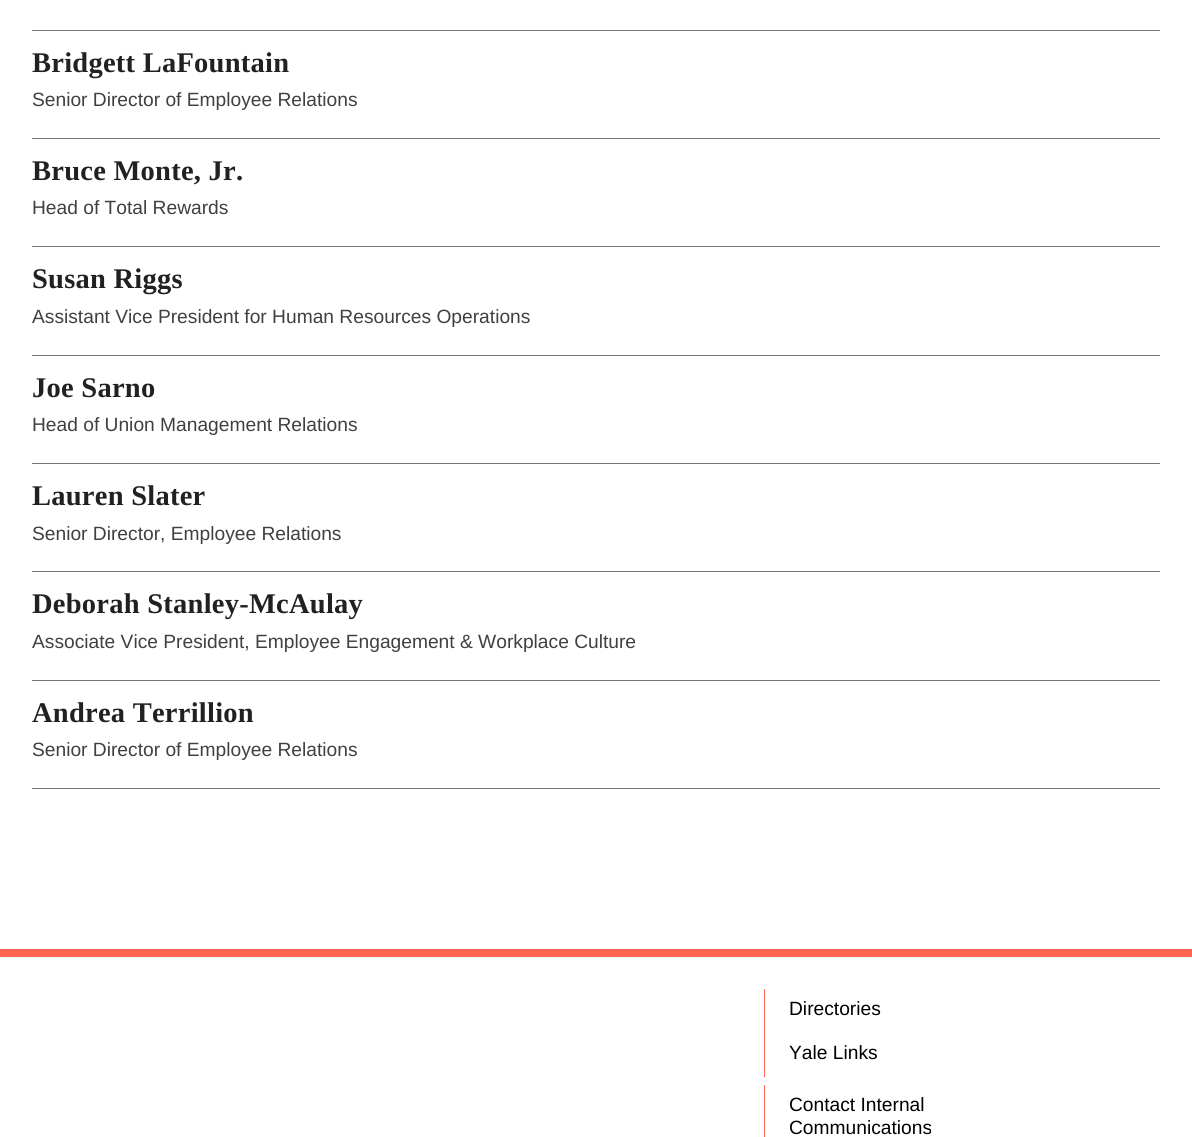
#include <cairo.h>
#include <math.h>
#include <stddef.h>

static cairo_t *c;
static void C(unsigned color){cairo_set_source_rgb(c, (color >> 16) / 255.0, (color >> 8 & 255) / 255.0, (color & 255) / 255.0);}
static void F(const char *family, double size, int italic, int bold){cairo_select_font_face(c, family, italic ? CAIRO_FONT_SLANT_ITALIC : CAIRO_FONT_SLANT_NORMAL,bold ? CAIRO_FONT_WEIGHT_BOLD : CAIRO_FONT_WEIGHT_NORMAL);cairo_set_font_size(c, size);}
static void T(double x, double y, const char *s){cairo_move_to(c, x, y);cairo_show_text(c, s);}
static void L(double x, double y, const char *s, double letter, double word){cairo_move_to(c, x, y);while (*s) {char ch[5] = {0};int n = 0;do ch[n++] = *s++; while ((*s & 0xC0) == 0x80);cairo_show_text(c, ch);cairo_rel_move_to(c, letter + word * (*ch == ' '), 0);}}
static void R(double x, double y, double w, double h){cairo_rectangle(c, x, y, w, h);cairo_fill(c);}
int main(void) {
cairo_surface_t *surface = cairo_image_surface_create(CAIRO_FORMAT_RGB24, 1192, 1137);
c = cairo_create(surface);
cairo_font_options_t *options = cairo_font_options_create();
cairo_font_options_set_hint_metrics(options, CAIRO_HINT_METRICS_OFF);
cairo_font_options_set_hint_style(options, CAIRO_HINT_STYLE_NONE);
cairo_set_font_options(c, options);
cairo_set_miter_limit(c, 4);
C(0xffffff);
cairo_paint(c);
C(0x757575);
R(32,30,1128,1);
R(32,138,1128,1);
F("Liberation Serif",28.5,0,1);
C(0x212121);
L(32,72,"Bridgett LaFountain",.25,0);
F("Liberation Sans",19.2,0,0);
C(0x404040);
T(32,106,"Senior Director of Employee Relations");
C(0x757575);
R(32,246,1128,1);
F("Liberation Serif",28.5,0,1);
C(0x212121);
L(32,180,"Bruce Monte, Jr.",.25,0);
F("Liberation Sans",19.2,0,0);
C(0x404040);
T(32,214,"Head of Total Rewards");
C(0x757575);
R(32,355,1128,1);
F("Liberation Serif",28.5,0,1);
C(0x212121);
L(32,288,"Susan Riggs",.25,0);
F("Liberation Sans",19.2,0,0);
C(0x404040);
T(32,323,"Assistant Vice President for Human Resources Operations");
C(0x757575);
R(32,463,1128,1);
F("Liberation Serif",28.5,0,1);
C(0x212121);
L(32,397,"Joe Sarno",.25,0);
F("Liberation Sans",19.2,0,0);
C(0x404040);
T(32,431,"Head of Union Management Relations");
C(0x757575);
R(32,571,1128,1);
F("Liberation Serif",28.5,0,1);
C(0x212121);
L(32,505,"Lauren Slater",.25,0);
F("Liberation Sans",19.2,0,0);
C(0x404040);
T(32,540,"Senior Director, Employee Relations");
C(0x757575);
R(32,680,1128,1);
F("Liberation Serif",28.5,0,1);
C(0x212121);
L(32,613,"Deborah Stanley-McAulay",.25,0);
F("Liberation Sans",19.2,0,0);
C(0x404040);
T(32,648,"Associate Vice President, Employee Engagement & Workplace Culture");
C(0x757575);
R(32,788,1128,1);
F("Liberation Serif",28.5,0,1);
C(0x212121);
L(32,722,"Andrea Terrillion",.25,0);
F("Liberation Sans",19.2,0,0);
C(0x404040);
T(32,756,"Senior Director of Employee Relations");
C(0xff6352);
R(0,949,1192,8);
R(764,989,1,88);
C(0x000000);
T(789,1015,"Directories");
T(789,1059,"Yale Links");
C(0xff6352);
R(764,1085,1,52);
C(0x000000);
T(789,1111,"Contact Internal");
T(789,1134,"Communications");
cairo_surface_write_to_png(surface, "o.png");
cairo_font_options_destroy(options);
cairo_destroy(c);
cairo_surface_destroy(surface);
return 0;
}
